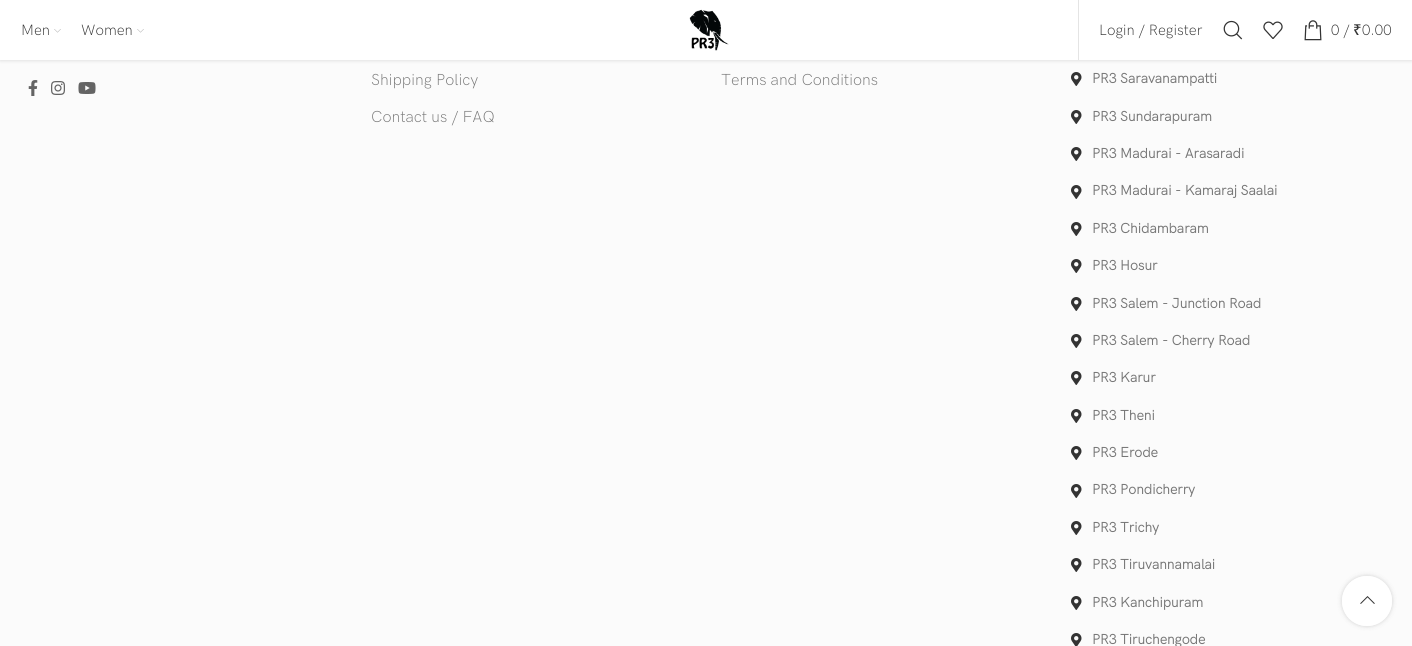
#include <cairo.h>
#include <math.h>
#include <stddef.h>

static cairo_t *c;
static void C(unsigned color){cairo_set_source_rgb(c, (color >> 16) / 255.0, (color >> 8 & 255) / 255.0, (color & 255) / 255.0);}
static void F(const char *family, double size, int italic, int bold){cairo_select_font_face(c, family, italic ? CAIRO_FONT_SLANT_ITALIC : CAIRO_FONT_SLANT_NORMAL,bold ? CAIRO_FONT_WEIGHT_BOLD : CAIRO_FONT_WEIGHT_NORMAL);cairo_set_font_size(c, size);}
static void T(double x, double y, const char *s){cairo_move_to(c, x, y);cairo_show_text(c, s);}
static void R(double x, double y, double w, double h){cairo_rectangle(c, x, y, w, h);cairo_fill(c);}
static void Q(double x, double y, double w, double h, double r){cairo_new_sub_path(c);cairo_arc(c, x + w - r, y + h - r, r, 0, M_PI / 2);cairo_arc(c, x + r, y + h - r, r, M_PI / 2, M_PI);cairo_arc(c, x + r, y + r, r, M_PI, 1.5 * M_PI);cairo_arc(c, x + w - r, y + r, r, 1.5 * M_PI, 2 * M_PI);cairo_close_path(c);}
static void S(double x, double y, double w, double h, double r, double blur, double alpha){cairo_push_group_with_content(c, CAIRO_CONTENT_ALPHA);cairo_set_operator(c, CAIRO_OPERATOR_SOURCE);for (int i = 15; i >= -15 && fmin(w, h) + blur * i / 3 > 0; i -= 2) {double e = blur * i / 6;cairo_set_source_rgba(c, 0, 0, 0, alpha * erfc((i - 1) / 8.5) / 2);Q(x - e, y - e, w + 2 * e, h + 2 * e, fmax(0, fmin(r + e + blur * .6, fmin(w, h) / 2 + e)));cairo_fill(c);}cairo_pattern_t *soft = cairo_pop_group(c);cairo_mask(c, soft);cairo_pattern_destroy(soft);}
static void I(const char *path, double x, double y, double w, double h){cairo_surface_t *image = cairo_image_surface_create_from_png(path);cairo_save(c);cairo_set_source_surface(c, image, x, y);cairo_rectangle(c, x, y, w, h);cairo_fill(c);cairo_restore(c);cairo_surface_destroy(image);}
int main(void) {
cairo_surface_t *surface = cairo_image_surface_create(CAIRO_FORMAT_RGB24, 1412, 646);
c = cairo_create(surface);
cairo_font_options_t *options = cairo_font_options_create();
cairo_font_options_set_hint_metrics(options, CAIRO_HINT_METRICS_OFF);
cairo_font_options_set_hint_style(options, CAIRO_HINT_STYLE_NONE);
cairo_set_font_options(c, options);
cairo_set_miter_limit(c, 4);
C(0xfbfbfb);
cairo_paint(c);
C(0x000000);
S(0,1,1412,60,0,1.5,.1);
C(0xffffff);
R(0,0,1412,60);
F("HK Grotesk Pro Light",15,0,0);
C(0x333333);
T(21,35,"Men");
I("1.png",54,29,7,4);
T(81,35,"Women");
I("1.png",137,29,7,4);
I("2.png",689,9,40,42);
C(0xe4e4e4);
R(1078,0,1,60);
C(0x333333);
T(1099,35,"Login / Register");
I("3.png",1223,20,20,20);
I("4.png",1263,21,20,18);
I("5.png",1304,20,18,21);
T(1331,35,"0 /");
F("Noto Sans Medium",15,0,0);
T(1353,35,"₹");
F("HK Grotesk Pro Light",15,0,0);
T(1362,35,"0.00");
I("6.png",28,80,10,16);
I("7.png",51,81,14,14);
I("8.png",78,82,18,12);
F("HK Grotesk Pro Light",16,0,0);
C(0x767676);
T(371,85,"Shipping Policy");
T(371,122,"Contact us / FAQ");
T(721,85,"Terms and Conditions");
I("9.png",1071,72,11,14);
F("HK Grotesk Pro",14,0,1);
T(1092,83,"PR3 Saravanampatti");
I("9.png",1071,110,11,14);
T(1092,121,"PR3 Sundarapuram");
I("9.png",1071,147,11,14);
T(1092,158,"PR3 Madurai - Arasaradi");
I("9.png",1071,185,11,14);
T(1092,195,"PR3 Madurai - Kamaraj Saalai");
I("9.png",1071,222,11,14);
T(1092,233,"PR3 Chidambaram");
I("9.png",1071,259,11,14);
T(1092,270,"PR3 Hosur");
I("9.png",1071,297,11,14);
T(1092,308,"PR3 Salem - Junction Road");
I("9.png",1071,334,11,14);
T(1092,345,"PR3 Salem - Cherry Road");
I("9.png",1071,371,11,14);
T(1092,382,"PR3 Karur");
I("9.png",1071,409,11,14);
T(1092,420,"PR3 Theni");
I("9.png",1071,446,11,14);
T(1092,457,"PR3 Erode");
I("9.png",1071,484,11,14);
T(1092,494,"PR3 Pondicherry");
I("9.png",1071,521,11,14);
T(1092,532,"PR3 Trichy");
I("9.png",1071,558,11,14);
T(1092,569,"PR3 Tiruvannamalai");
I("9.png",1071,596,11,14);
T(1092,607,"PR3 Kanchipuram");
I("10.png",1071,633,11,13);
T(1092,644,"PR3 Tiruchengode");
cairo_save(c);
cairo_set_fill_rule(c,CAIRO_FILL_RULE_EVEN_ODD);
cairo_new_path(c);
cairo_move_to(c,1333,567);
cairo_line_to(c,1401,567);
cairo_line_to(c,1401,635);
cairo_line_to(c,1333,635);
cairo_close_path(c);
cairo_move_to(c,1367,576);
cairo_curve_to(c,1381,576,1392,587,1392,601);
cairo_curve_to(c,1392,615,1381,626,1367,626);
cairo_curve_to(c,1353,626,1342,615,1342,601);
cairo_curve_to(c,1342,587,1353,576,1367,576);
cairo_close_path(c);
cairo_clip(c);
C(0x000000);
S(1342,576,50,50,25,2.5,.17);
cairo_restore(c);
cairo_set_source_rgba(c,1,1,1,0.9);
cairo_arc(c,1367,601,25,0,2 * M_PI);
cairo_fill(c);
I("11.png",1360,596,15,8);
cairo_surface_write_to_png(surface, "o.png");
cairo_font_options_destroy(options);
cairo_destroy(c);
cairo_surface_destroy(surface);
return 0;
}
